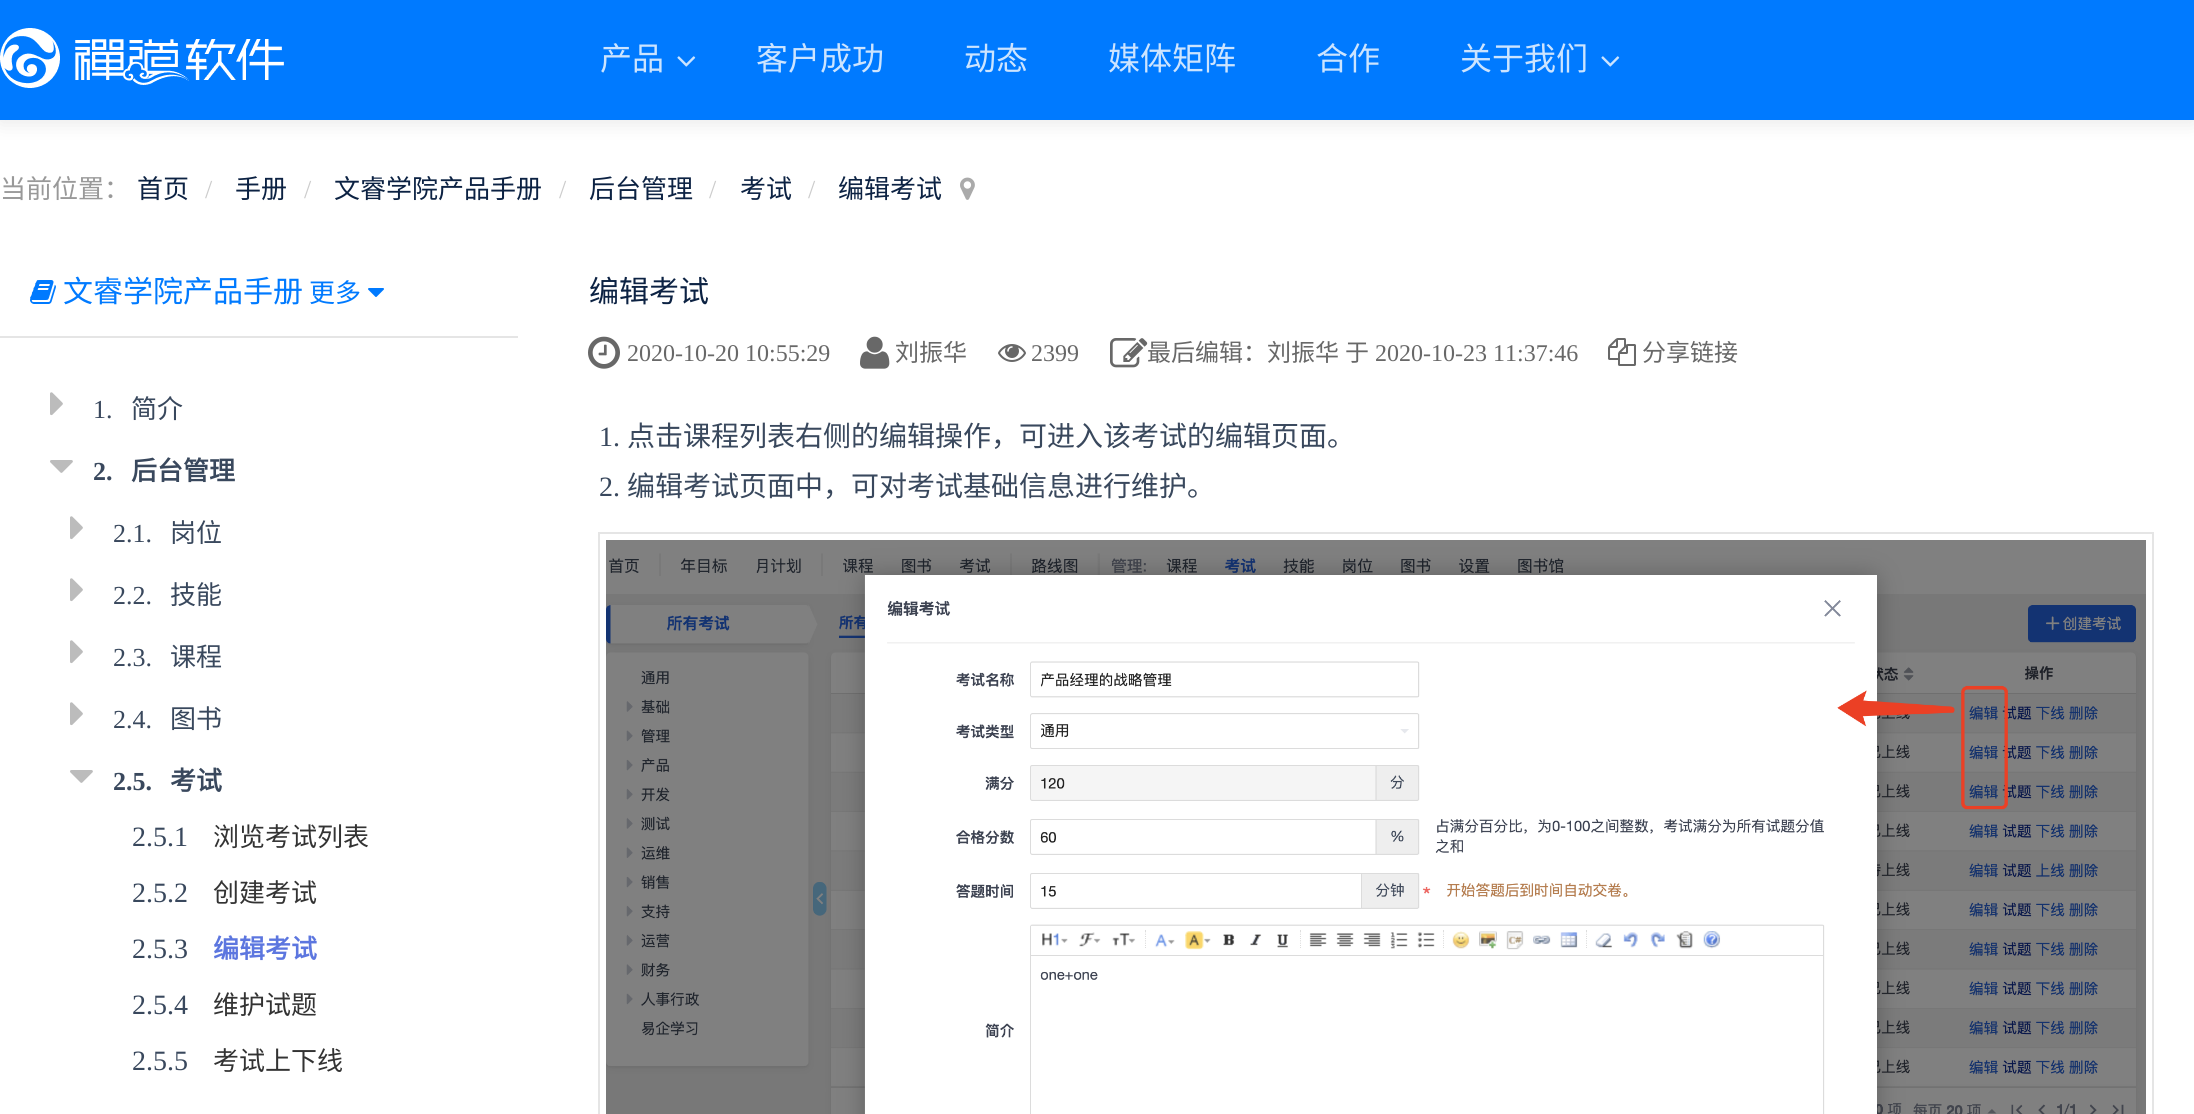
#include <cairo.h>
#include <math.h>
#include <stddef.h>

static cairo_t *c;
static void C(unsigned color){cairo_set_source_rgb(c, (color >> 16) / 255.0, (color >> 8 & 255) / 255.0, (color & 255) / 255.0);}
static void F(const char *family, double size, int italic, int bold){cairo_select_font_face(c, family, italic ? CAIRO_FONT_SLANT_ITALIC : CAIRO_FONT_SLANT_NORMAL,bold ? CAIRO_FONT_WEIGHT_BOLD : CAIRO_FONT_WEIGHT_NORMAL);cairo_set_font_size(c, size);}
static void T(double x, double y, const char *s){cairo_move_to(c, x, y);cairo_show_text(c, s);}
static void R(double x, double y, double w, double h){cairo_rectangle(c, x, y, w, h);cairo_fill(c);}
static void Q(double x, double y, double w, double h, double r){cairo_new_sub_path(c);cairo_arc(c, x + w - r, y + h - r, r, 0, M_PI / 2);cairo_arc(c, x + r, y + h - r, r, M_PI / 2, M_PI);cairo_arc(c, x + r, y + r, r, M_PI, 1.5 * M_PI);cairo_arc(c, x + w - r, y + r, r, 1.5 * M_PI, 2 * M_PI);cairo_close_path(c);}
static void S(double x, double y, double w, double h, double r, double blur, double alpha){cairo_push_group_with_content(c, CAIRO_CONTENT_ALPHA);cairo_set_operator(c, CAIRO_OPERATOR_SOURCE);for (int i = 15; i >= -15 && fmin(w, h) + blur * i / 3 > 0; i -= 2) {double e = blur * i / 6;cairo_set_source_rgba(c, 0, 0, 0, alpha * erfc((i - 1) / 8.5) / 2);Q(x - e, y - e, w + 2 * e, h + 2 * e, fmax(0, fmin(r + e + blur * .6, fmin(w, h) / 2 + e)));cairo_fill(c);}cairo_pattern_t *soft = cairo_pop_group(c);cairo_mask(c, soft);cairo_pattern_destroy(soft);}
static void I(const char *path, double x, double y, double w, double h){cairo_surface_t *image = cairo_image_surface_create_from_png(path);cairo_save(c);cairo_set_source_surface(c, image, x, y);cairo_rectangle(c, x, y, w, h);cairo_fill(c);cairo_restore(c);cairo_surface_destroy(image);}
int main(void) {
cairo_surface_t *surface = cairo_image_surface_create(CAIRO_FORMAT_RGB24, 2194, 1114);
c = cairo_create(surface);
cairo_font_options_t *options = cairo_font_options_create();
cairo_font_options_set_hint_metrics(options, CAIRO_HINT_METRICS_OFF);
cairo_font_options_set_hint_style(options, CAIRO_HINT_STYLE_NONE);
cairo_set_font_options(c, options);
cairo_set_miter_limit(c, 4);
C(0xffffff);
cairo_paint(c);
C(0x000000);
S(0,2,2194,120,0,10,.1);
C(0x007aff);
R(0,0,2194,120);
I("1.png",0,28,284,60);
F("Noto Sans CJK SC",32,0,0);
C(0xcce4ff);
T(600,70,"产品");
I("2.png",677,56,19,11);
T(756,70,"客户成功");
T(964,70,"动态");
T(1108,70,"媒体矩阵");
T(1316,70,"合作");
T(1460,70,"关于我们");
I("2.png",1601,56,19,11);
F("Noto Sans CJK SC",26,0,0);
C(0x999999);
T(0,198,"当前位置：");
C(0x0c2243);
T(137,198,"首页");
F("Liberation Serif",26,0,0);
C(0xcccccc);
T(205,198,"/");
F("Noto Sans CJK SC",26,0,0);
C(0x0c2243);
T(235,198,"手册");
F("Liberation Serif",26,0,0);
C(0xcccccc);
T(304,198,"/");
F("Noto Sans CJK SC",26,0,0);
C(0x0c2243);
T(334,198,"文睿学院产品手册");
F("Liberation Serif",26,0,0);
C(0xcccccc);
T(559,198,"/");
F("Noto Sans CJK SC",26,0,0);
C(0x0c2243);
T(589,198,"后台管理");
F("Liberation Serif",26,0,0);
C(0xcccccc);
T(709,198,"/");
F("Noto Sans CJK SC",26,0,0);
C(0x0c2243);
T(740,198,"考试");
F("Liberation Serif",26,0,0);
C(0xcccccc);
T(808,198,"/");
F("Noto Sans CJK SC",26,0,0);
C(0x0c2243);
T(838,198,"编辑考试");
I("3.png",960,177,15,23);
C(0xe5e5e5);
R(0,336,518,2);
I("4.png",30,280,26,24);
F("Noto Sans CJK SC",30,0,0);
C(0x007aff);
T(63,302,"文睿学院产品手册");
F("Noto Sans CJK SC",26,0,0);
T(309,302,"更多");
I("5.png",368,288,16,9);
I("6.png",50,392,13,24);
F("Liberation Serif",26,0,0);
C(0x39485d);
T(93,418,"1.");
F("Noto Sans CJK SC",26,0,0);
T(131,418,"简介");
I("7.png",50,460,23,13);
F("Liberation Serif",26,0,1);
T(93,480,"2.");
F("Noto Sans CJK SC",26,0,1);
T(131,480,"后台管理");
I("6.png",70,516,13,24);
F("Liberation Serif",26,0,0);
T(113,542,"2.1.");
F("Noto Sans CJK SC",26,0,0);
T(170,542,"岗位");
I("6.png",70,578,13,24);
F("Liberation Serif",26,0,0);
T(113,604,"2.2.");
F("Noto Sans CJK SC",26,0,0);
T(170,604,"技能");
I("6.png",70,640,13,24);
F("Liberation Serif",26,0,0);
T(113,666,"2.3.");
F("Noto Sans CJK SC",26,0,0);
T(170,666,"课程");
I("6.png",70,702,13,24);
F("Liberation Serif",26,0,0);
T(113,728,"2.4.");
F("Noto Sans CJK SC",26,0,0);
T(170,728,"图书");
I("7.png",70,770,23,13);
F("Liberation Serif",26,0,1);
T(113,790,"2.5.");
F("Noto Sans CJK SC",26,0,1);
T(170,790,"考试");
F("Liberation Serif",28,0,0);
T(132,846,"2.5.1");
F("Noto Sans CJK SC",26,0,0);
C(0x333333);
T(213,846,"浏览考试列表");
F("Liberation Serif",28,0,0);
C(0x39485d);
T(132,902,"2.5.2");
F("Noto Sans CJK SC",26,0,0);
C(0x333333);
T(213,902,"创建考试");
F("Liberation Serif",28,0,0);
C(0x39485d);
T(132,958,"2.5.3");
F("Noto Sans CJK SC",26,0,1);
C(0x5c76df);
T(213,958,"编辑考试");
F("Liberation Serif",28,0,0);
C(0x39485d);
T(132,1014,"2.5.4");
F("Noto Sans CJK SC",26,0,0);
C(0x333333);
T(213,1014,"维护试题");
F("Liberation Serif",28,0,0);
C(0x39485d);
T(132,1070,"2.5.5");
F("Noto Sans CJK SC",26,0,0);
C(0x333333);
T(213,1070,"考试上下线");
F("Noto Sans CJK SC",30,0,0);
C(0x0c2243);
T(589,302,"编辑考试");
I("8.png",588,336,32,33);
F("Liberation Serif",24,0,0);
C(0x686868);
T(627,361,"2020-10-20 10:55:29");
I("9.png",860,336,30,33);
F("Noto Sans CJK SC",24,0,0);
T(895,361,"刘振华");
I("10.png",998,344,28,18);
F("Liberation Serif",24,0,0);
T(1031,361,"2399");
I("11.png",1110,338,38,30);
F("Noto Sans CJK SC",24,0,0);
T(1147,361,"最后编辑：刘振华");
T(1345,361,"于");
F("Liberation Serif",24,0,0);
T(1375,361,"2020-10-23 11:37:46");
I("12.png",1608,338,28,28);
F("Noto Sans CJK SC",24,0,0);
T(1642,361,"分享链接");
F("Liberation Serif",28,0,0);
C(0x39485d);
T(599,446,"1.");
F("Noto Sans CJK SC",28,0,0);
T(627,446,"点击课程列表右侧的编辑操作，可进入该考试的编辑页面。");
F("Liberation Serif",28,0,0);
T(599,496,"2.");
F("Noto Sans CJK SC",28,0,0);
T(627,496,"编辑考试页面中，可对考试基础信息进行维护。");
cairo_rectangle(c,599,533,1554,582);
C(0xe5e5e5);
cairo_stroke(c);
I("13.png",606,540,1540,574);
cairo_surface_write_to_png(surface, "o.png");
cairo_font_options_destroy(options);
cairo_destroy(c);
cairo_surface_destroy(surface);
return 0;
}
